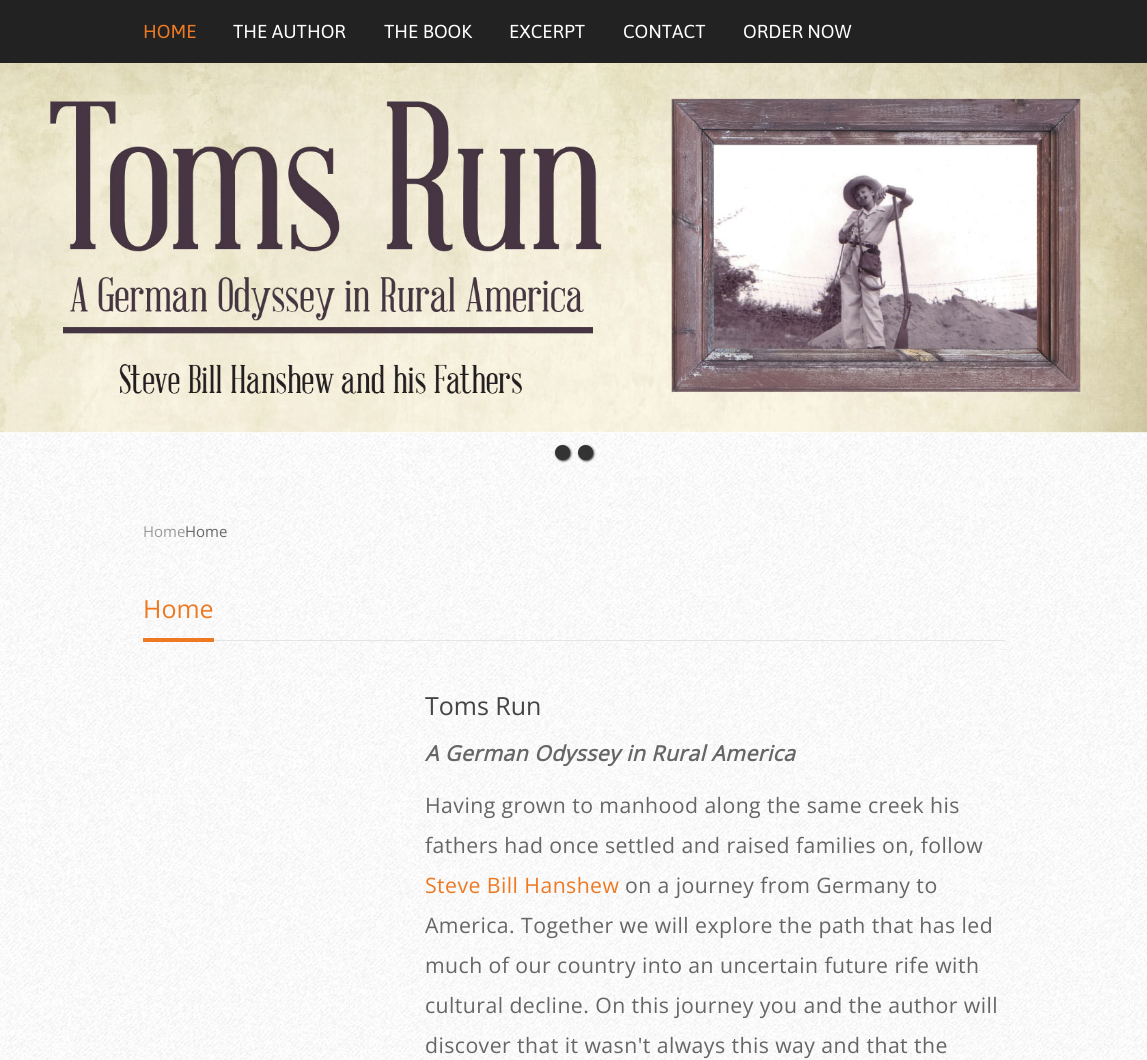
#include <cairo.h>
#include <math.h>
#include <stddef.h>

static cairo_t *c;
static void C(unsigned color){cairo_set_source_rgb(c, (color >> 16) / 255.0, (color >> 8 & 255) / 255.0, (color & 255) / 255.0);}
static void F(const char *family, double size, int italic, int bold){cairo_select_font_face(c, family, italic ? CAIRO_FONT_SLANT_ITALIC : CAIRO_FONT_SLANT_NORMAL,bold ? CAIRO_FONT_WEIGHT_BOLD : CAIRO_FONT_WEIGHT_NORMAL);cairo_set_font_size(c, size);}
static void T(double x, double y, const char *s){cairo_move_to(c, x, y);cairo_show_text(c, s);}
static void L(double x, double y, const char *s, double letter, double word){cairo_move_to(c, x, y);while (*s) {char ch[5] = {0};int n = 0;do ch[n++] = *s++; while ((*s & 0xC0) == 0x80);cairo_show_text(c, ch);cairo_rel_move_to(c, letter + word * (*ch == ' '), 0);}}
static void R(double x, double y, double w, double h){cairo_rectangle(c, x, y, w, h);cairo_fill(c);}
static void Q(double x, double y, double w, double h, double r){cairo_new_sub_path(c);cairo_arc(c, x + w - r, y + h - r, r, 0, M_PI / 2);cairo_arc(c, x + r, y + h - r, r, M_PI / 2, M_PI);cairo_arc(c, x + r, y + r, r, M_PI, 1.5 * M_PI);cairo_arc(c, x + w - r, y + r, r, 1.5 * M_PI, 2 * M_PI);cairo_close_path(c);}
static void S(double x, double y, double w, double h, double r, double blur, double alpha){cairo_push_group_with_content(c, CAIRO_CONTENT_ALPHA);cairo_set_operator(c, CAIRO_OPERATOR_SOURCE);for (int i = 15; i >= -15 && fmin(w, h) + blur * i / 3 > 0; i -= 2) {double e = blur * i / 6;cairo_set_source_rgba(c, 0, 0, 0, alpha * erfc((i - 1) / 8.5) / 2);Q(x - e, y - e, w + 2 * e, h + 2 * e, fmax(0, fmin(r + e + blur * .6, fmin(w, h) / 2 + e)));cairo_fill(c);}cairo_pattern_t *soft = cairo_pop_group(c);cairo_mask(c, soft);cairo_pattern_destroy(soft);}
static void I(const char *path, double x, double y, double w, double h){cairo_surface_t *image = cairo_image_surface_create_from_png(path);cairo_save(c);cairo_set_source_surface(c, image, x, y);cairo_rectangle(c, x, y, w, h);cairo_fill(c);cairo_restore(c);cairo_surface_destroy(image);}
int main(void) {
cairo_surface_t *surface = cairo_image_surface_create(CAIRO_FORMAT_RGB24, 1147, 1060);
c = cairo_create(surface);
cairo_font_options_t *options = cairo_font_options_create();
cairo_font_options_set_hint_metrics(options, CAIRO_HINT_METRICS_OFF);
cairo_font_options_set_hint_style(options, CAIRO_HINT_STYLE_NONE);
cairo_set_font_options(c, options);
cairo_set_miter_limit(c, 4);
C(0xffffff);
cairo_paint(c);
I("1.png",0,433,1147,627);
C(0x222222);
R(0,0,1147,63);
F("Asap",18.75,0,0);
C(0xee7923);
T(143,38,"HOME");
C(0xffffff);
T(233,38,"THE AUTHOR");
T(384,38,"THE BOOK");
T(509,38,"EXCERPT");
T(623,38,"CONTACT");
T(743,38,"ORDER NOW");
I("2.png",0,63,1147,370);
C(0x333333);
S(556,446,15,15,7.5,1,1);
C(0x333333);
cairo_arc(c,562.5,452.5,7.5,0,2 * M_PI);
cairo_fill(c);
C(0x333333);
S(579,446,15,15,7.5,1,1);
C(0x333333);
cairo_arc(c,585.5,452.5,7.5,0,2 * M_PI);
cairo_fill(c);
F("Open Sans",15,0,0);
C(0x999999);
T(143,537,"Home");
C(0x666666);
T(185,537,"Home");
C(0xe5e5e5);
R(214,640,791,1);
C(0xee7923);
R(143,638,71,4);
F("Open Sans",25,0,0);
T(143,618,"Home");
C(0x444444);
T(425,715,"Toms Run");
F("Open Sans",21.25,1,1);
C(0x666666);
L(425,761,"A German Odyssey in Rural America",.43,0);
F("Open Sans",21.25,0,0);
L(425,813,"Having grown to manhood along the same creek his",.43,0);
L(425,853,"fathers had once settled and raised families on, follow",.43,0);
C(0xee7923);
L(425,893,"Steve Bill Hanshew",.43,0);
C(0x666666);
L(625,893,"on a journey from Germany to",.43,0);
L(425,933,"America. Together we will explore the path that has led",.43,0);
L(425,973,"much of our country into an uncertain future rife with",.43,0);
L(425,1013,"cultural decline. On this journey you and the author will",.43,0);
L(425,1053,"discover that it wasn't always this way and that the",.43,0);
cairo_surface_write_to_png(surface, "o.png");
cairo_font_options_destroy(options);
cairo_destroy(c);
cairo_surface_destroy(surface);
return 0;
}
